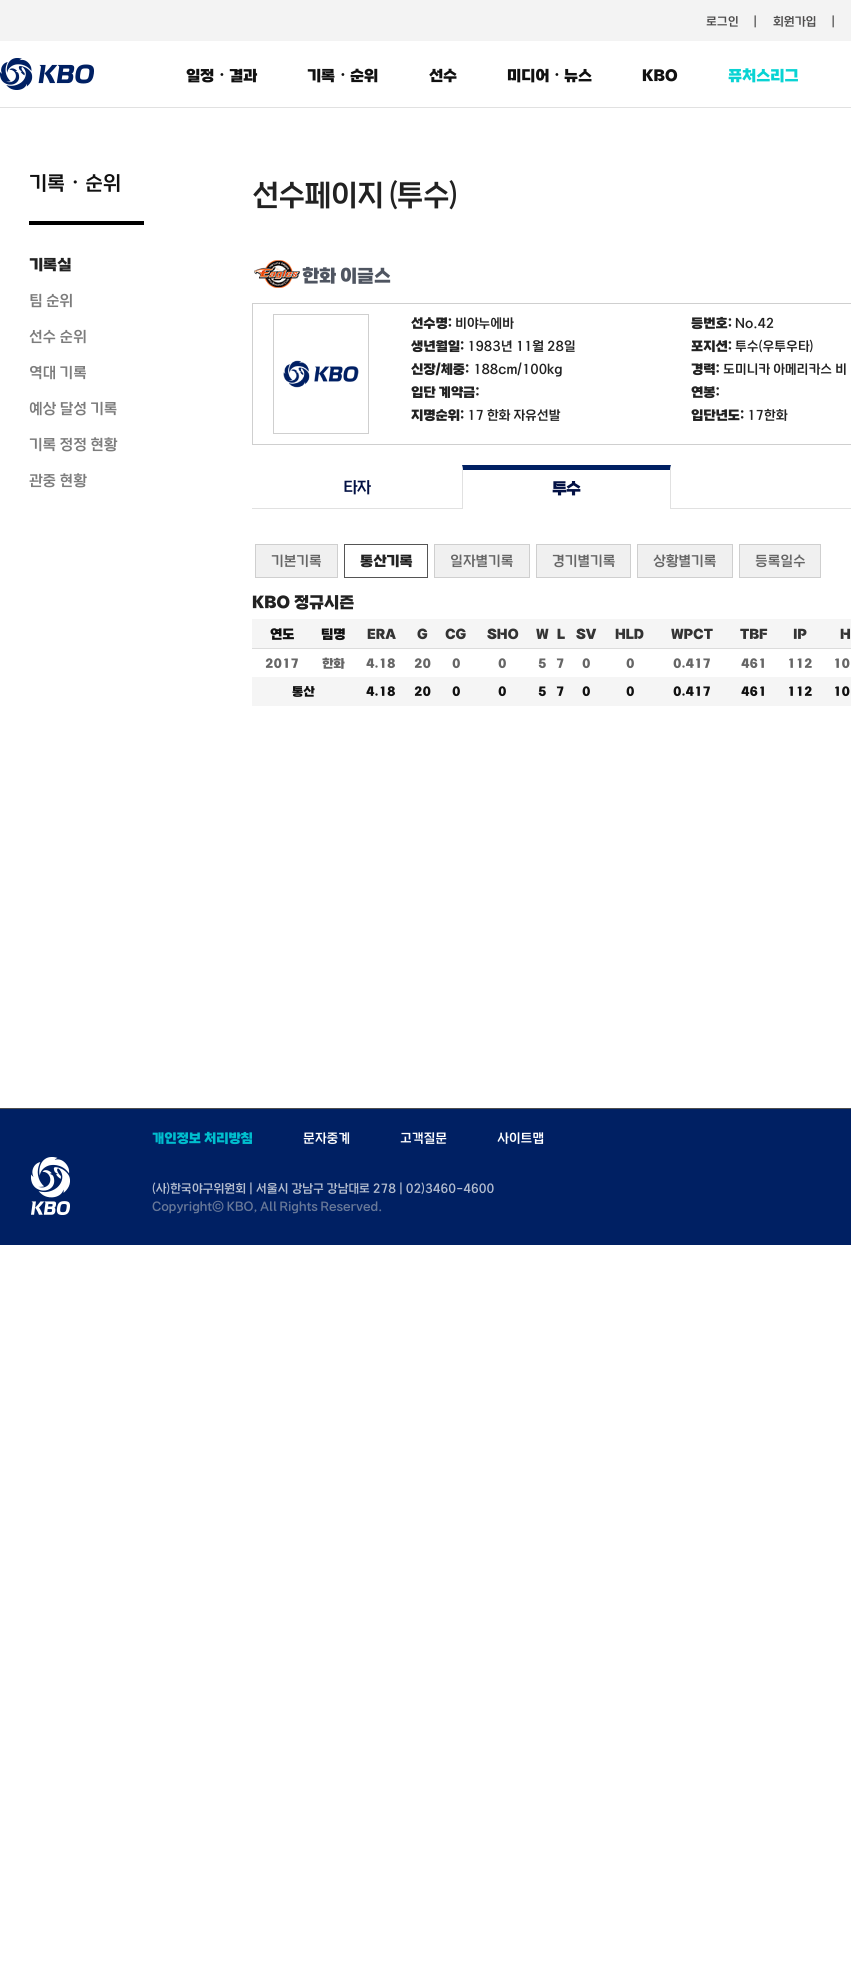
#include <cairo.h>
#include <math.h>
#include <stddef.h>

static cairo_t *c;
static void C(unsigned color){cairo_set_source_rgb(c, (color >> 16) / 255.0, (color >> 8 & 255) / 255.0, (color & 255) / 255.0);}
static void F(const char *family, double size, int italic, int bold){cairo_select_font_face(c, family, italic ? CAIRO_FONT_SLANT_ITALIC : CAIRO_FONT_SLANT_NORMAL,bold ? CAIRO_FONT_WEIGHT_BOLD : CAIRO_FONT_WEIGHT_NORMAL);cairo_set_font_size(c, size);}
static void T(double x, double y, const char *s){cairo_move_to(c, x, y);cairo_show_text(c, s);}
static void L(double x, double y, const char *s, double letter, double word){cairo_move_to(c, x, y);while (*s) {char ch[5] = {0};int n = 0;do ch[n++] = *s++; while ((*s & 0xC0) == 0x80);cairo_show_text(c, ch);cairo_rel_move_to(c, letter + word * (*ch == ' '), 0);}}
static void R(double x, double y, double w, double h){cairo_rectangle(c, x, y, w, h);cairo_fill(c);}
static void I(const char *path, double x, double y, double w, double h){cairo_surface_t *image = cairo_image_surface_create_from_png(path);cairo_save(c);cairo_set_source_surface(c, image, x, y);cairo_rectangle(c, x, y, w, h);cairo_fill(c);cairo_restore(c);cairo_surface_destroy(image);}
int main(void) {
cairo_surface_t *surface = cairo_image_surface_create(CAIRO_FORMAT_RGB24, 851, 1971);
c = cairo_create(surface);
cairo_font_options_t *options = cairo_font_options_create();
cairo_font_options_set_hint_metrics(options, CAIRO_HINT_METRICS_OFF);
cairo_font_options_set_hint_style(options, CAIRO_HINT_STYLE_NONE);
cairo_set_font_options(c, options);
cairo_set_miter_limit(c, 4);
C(0xffffff);
cairo_paint(c);
C(0xf3f3f3);
R(0,0,851,41);
F("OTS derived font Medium",12,0,0);
C(0x4d4c4c);
T(706,25,"로그인");
T(753,25,"|");
T(773,25,"회원가입");
T(831,25,"|");
C(0xe1e1e1);
R(0,107,851,1);
I("1.png",0,58,94,32);
F("OTS derived font",15,0,1);
C(0x111111);
T(186,80,"일정");
F("WenQuanYi Zen Hei",15,0,1);
T(214,80,"・");
F("OTS derived font",15,0,1);
T(229,80,"결과");
T(307,80,"기록");
F("WenQuanYi Zen Hei",15,0,1);
T(335,80,"・");
F("OTS derived font",15,0,1);
T(350,80,"순위");
T(429,80,"선수");
T(507,80,"미디어");
F("WenQuanYi Zen Hei",15,0,1);
T(549,80,"・");
F("OTS derived font",15,0,1);
T(564,80,"뉴스");
T(642,80,"KBO");
C(0x09d3d3);
T(728,80,"퓨처스리그");
C(0x000000);
R(29,221,115,4);
F("OTS derived font Medium",20,0,0);
C(0x111111);
T(29,189,"기록");
F("WenQuanYi Zen Hei Medium",20,0,0);
T(65,189,"・");
F("OTS derived font Medium",20,0,0);
T(85,189,"순위");
F("OTS derived font",15,0,1);
C(0x222222);
T(29,269,"기록실");
F("OTS derived font Medium",15,0,0);
C(0x7c7c7c);
T(29,305,"팀 순위");
T(29,341,"선수 순위");
T(29,377,"역대 기록");
T(29,413,"예상 달성 기록");
T(29,449,"기록 정정 현황");
T(29,485,"관중 현황");
F("OTS derived font Medium",30,0,0);
C(0x222222);
L(252,204,"선수페이지 (투수)",-1,0);
I("2.png",254,260,46,28);
F("OTS derived font",18,0,1);
C(0x4f5561);
T(302,281,"한화 이글스");
cairo_rectangle(c,252.5,303.5,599,141);
C(0xcfcfcf);
cairo_set_line_width(c,1);
cairo_stroke(c);
cairo_rectangle(c,273.5,314.5,95,119);
cairo_stroke(c);
I("3.png",283,360,76,28);
F("OTS derived font",13,0,1);
C(0x222222);
T(411,327,"선수명:");
F("OTS derived font Medium",13,0,0);
T(455,327,"비야누에바");
F("OTS derived font",13,0,1);
T(691,327,"등번호:");
F("OTS derived font Medium",13,0,0);
T(735,327,"No.42");
F("OTS derived font",13,0,1);
T(411,350,"생년월일:");
F("OTS derived font Medium",13,0,0);
T(467,350,"1983년 11월 28일");
F("OTS derived font",13,0,1);
T(691,350,"포지션:");
F("OTS derived font Medium",13,0,0);
T(735,350,"투수(우투우타)");
F("OTS derived font",13,0,1);
T(411,373,"신장/체중:");
F("OTS derived font Medium",13,0,0);
T(473,373,"188cm/100kg");
F("OTS derived font",13,0,1);
T(691,373,"경력:");
F("OTS derived font Medium",13,0,0);
T(723,373,"도미니카 아메리카스 비");
F("OTS derived font",13,0,1);
T(411,396,"입단 계약금:");
T(691,396,"연봉:");
T(411,419,"지명순위:");
F("OTS derived font Medium",13,0,0);
T(467,419,"17 한화 자유선발");
F("OTS derived font",13,0,1);
T(691,419,"입단년도:");
F("OTS derived font Medium",13,0,0);
T(747,419,"17한화");
F("OTS derived font Medium",16,0,0);
C(0x031144);
L(343,492,"타자",-1,0);
C(0xe1e1e1);
R(252,508,599,1);
C(0xffffff);
R(462,508,209,1);
C(0x002063);
cairo_new_path(c);
cairo_move_to(c,462,465);
cairo_line_to(c,671,465);
cairo_line_to(c,670,470);
cairo_line_to(c,463,470);
cairo_close_path(c);
cairo_fill(c);
C(0xe1e1e1);
cairo_new_path(c);
cairo_move_to(c,671,465);
cairo_line_to(c,671,509);
cairo_line_to(c,670,509);
cairo_line_to(c,670,470);
cairo_close_path(c);
cairo_fill(c);
cairo_new_path(c);
cairo_move_to(c,462,509);
cairo_line_to(c,462,465);
cairo_line_to(c,463,470);
cairo_line_to(c,463,509);
cairo_close_path(c);
cairo_fill(c);
F("OTS derived font",16,0,1);
C(0x031144);
L(552,493,"투수",-1,0);
C(0xf0f0f0);
cairo_rectangle(c,255.5,544.5,82,33);
cairo_fill_preserve(c);
C(0xcfcfcf);
cairo_stroke(c);
F("OTS derived font Medium",14,0,0);
C(0x666666);
T(271,565,"기본기록");
cairo_rectangle(c,344.5,544.5,83,33);
C(0x555555);
cairo_stroke(c);
F("OTS derived font",14,0,1);
C(0x222222);
T(360,565,"통산기록");
C(0xf0f0f0);
cairo_rectangle(c,434.5,544.5,95,33);
cairo_fill_preserve(c);
C(0xcfcfcf);
cairo_stroke(c);
F("OTS derived font Medium",14,0,0);
C(0x666666);
T(450,565,"일자별기록");
C(0xf0f0f0);
cairo_rectangle(c,536.5,544.5,94,33);
cairo_fill_preserve(c);
C(0xcfcfcf);
cairo_stroke(c);
C(0x666666);
T(552,565,"경기별기록");
C(0xf0f0f0);
cairo_rectangle(c,637.5,544.5,95,33);
cairo_fill_preserve(c);
C(0xcfcfcf);
cairo_stroke(c);
C(0x666666);
T(653,565,"상황별기록");
C(0xf0f0f0);
cairo_rectangle(c,739.5,544.5,81,33);
cairo_fill_preserve(c);
C(0xcfcfcf);
cairo_stroke(c);
C(0x666666);
T(755,565,"등록일수");
F("OTS derived font",16,0,1);
C(0x222222);
T(252,607,"KBO 정규시즌");
C(0xf5f5f5);
R(252,619,599,29);
F("OTS derived font",13,0,1);
C(0x111111);
T(270,638,"연도");
T(321,638,"팀명");
C(0x333333);
T(367,638,"ERA");
T(417,638,"G");
T(445,638,"CG");
T(487,638,"SHO");
T(536,638,"W");
T(557,638,"L");
T(576,638,"SV");
T(615,638,"HLD");
T(671,638,"WPCT");
T(740,638,"TBF");
T(793,638,"IP");
C(0xdcdcdc);
R(252,648,599,1);
C(0x333333);
T(840,638,"H");
F("OTS derived font",12,0,1);
C(0x666666);
T(265,667,"2017");
T(322,667,"한화");
T(366,667,"4.18");
T(414,667,"20");
T(452,667,"0");
T(498,667,"0");
T(538,667,"5");
T(556,667,"7");
T(582,667,"0");
T(626,667,"0");
T(673,667,"0.417");
T(741,667,"461");
T(787,667,"112");
T(833,667,"10");
C(0xf5f5f5);
R(252,677,599,29);
C(0x111111);
T(292,695,"통산");
T(366,695,"4.18");
T(414,695,"20");
T(452,695,"0");
T(498,695,"0");
T(538,695,"5");
T(556,695,"7");
T(582,695,"0");
T(626,695,"0");
T(673,695,"0.417");
T(741,695,"461");
T(787,695,"112");
T(833,695,"10");
C(0x002063);
R(0,1109,851,136);
C(0x4e4e4e);
R(0,1108,851,1);
F("OTS derived font",13,0,1);
C(0x00bece);
T(152,1142,"개인정보 처리방침");
F("OTS derived font Medium",13,0,0);
C(0xffffff);
T(303,1142,"문자중계");
T(400,1142,"고객질문");
T(497,1142,"사이트맵");
I("4.png",31,1157,39,58);
F("OTS derived font Medium",12,0,0);
C(0xb3bcce);
T(152,1192,"(사)한국야구위원회 | 서울시 강남구 강남대로 278 | 02)3460-4600");
C(0x687898);
T(152,1210,"Copyrightⓒ KBO, All Rights Reserved.");
cairo_surface_write_to_png(surface, "o.png");
cairo_font_options_destroy(options);
cairo_destroy(c);
cairo_surface_destroy(surface);
return 0;
}
